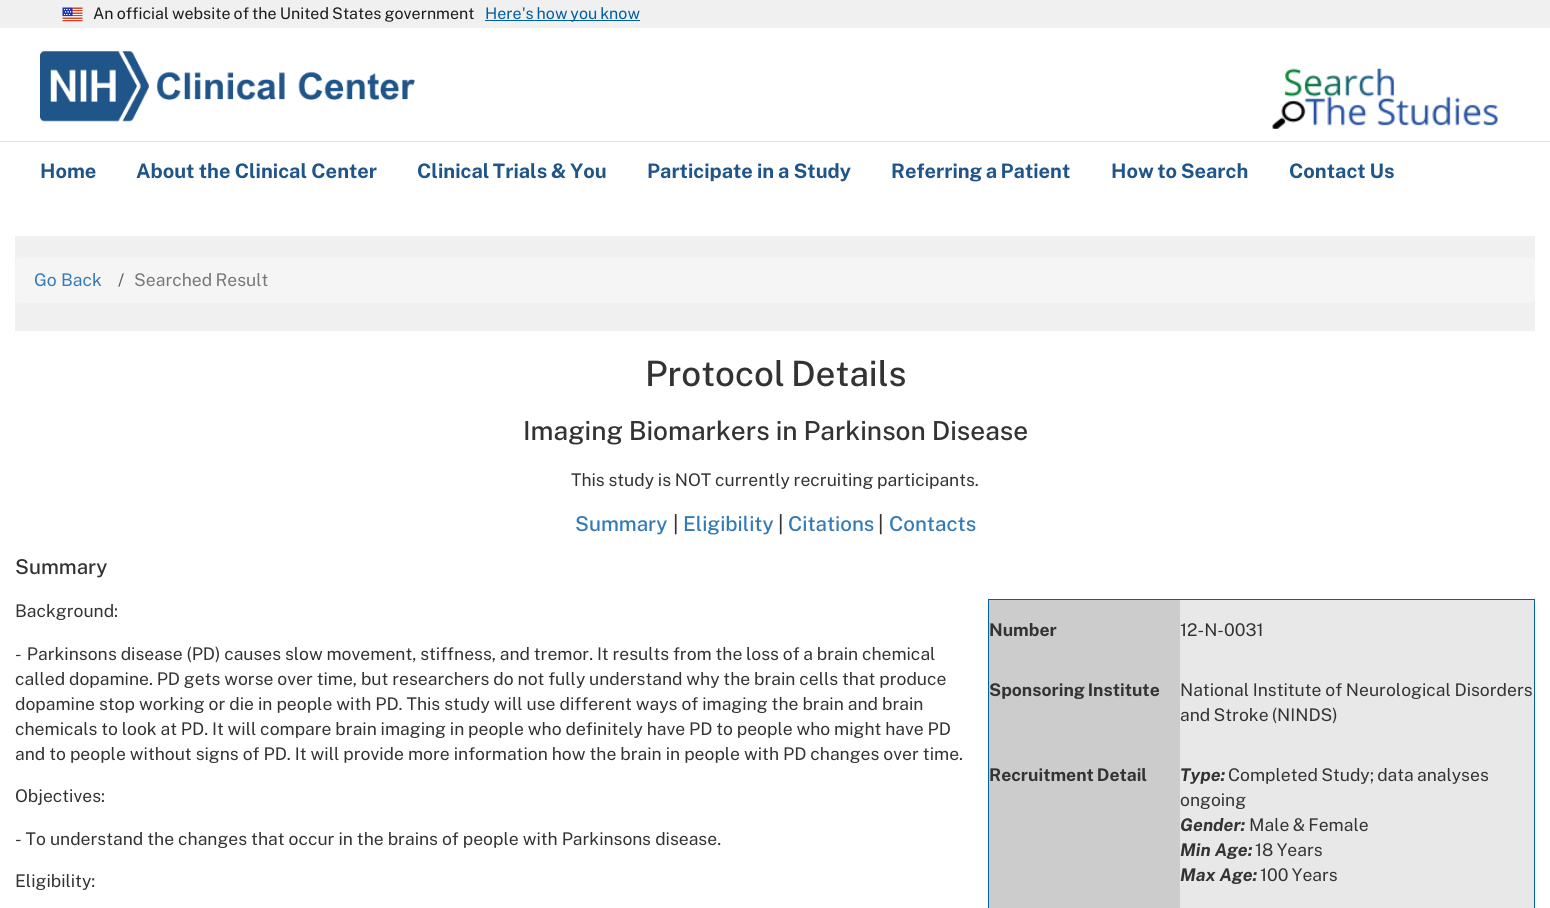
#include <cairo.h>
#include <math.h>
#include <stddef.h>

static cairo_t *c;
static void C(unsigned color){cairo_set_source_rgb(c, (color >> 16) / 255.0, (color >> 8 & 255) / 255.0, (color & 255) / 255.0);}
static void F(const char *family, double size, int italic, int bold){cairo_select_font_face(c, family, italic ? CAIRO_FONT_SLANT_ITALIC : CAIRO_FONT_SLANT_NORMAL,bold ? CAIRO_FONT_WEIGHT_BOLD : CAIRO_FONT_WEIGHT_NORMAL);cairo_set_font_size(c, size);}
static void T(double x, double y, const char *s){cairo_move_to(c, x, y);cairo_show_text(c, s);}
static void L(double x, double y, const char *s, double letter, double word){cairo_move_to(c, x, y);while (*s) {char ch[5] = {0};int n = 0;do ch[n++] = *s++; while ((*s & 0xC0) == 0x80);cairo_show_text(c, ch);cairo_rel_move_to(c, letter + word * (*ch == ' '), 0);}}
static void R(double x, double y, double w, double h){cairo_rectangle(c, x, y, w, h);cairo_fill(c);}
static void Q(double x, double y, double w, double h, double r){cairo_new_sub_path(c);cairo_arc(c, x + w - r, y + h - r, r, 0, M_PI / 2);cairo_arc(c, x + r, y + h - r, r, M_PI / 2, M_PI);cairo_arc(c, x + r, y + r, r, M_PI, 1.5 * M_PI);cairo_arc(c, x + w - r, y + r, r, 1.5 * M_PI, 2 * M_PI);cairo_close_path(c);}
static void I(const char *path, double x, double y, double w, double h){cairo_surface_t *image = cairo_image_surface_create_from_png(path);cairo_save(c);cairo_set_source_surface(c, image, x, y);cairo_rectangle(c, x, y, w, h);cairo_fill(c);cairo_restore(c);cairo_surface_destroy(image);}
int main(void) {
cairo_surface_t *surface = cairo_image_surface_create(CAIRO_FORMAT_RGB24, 1550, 908);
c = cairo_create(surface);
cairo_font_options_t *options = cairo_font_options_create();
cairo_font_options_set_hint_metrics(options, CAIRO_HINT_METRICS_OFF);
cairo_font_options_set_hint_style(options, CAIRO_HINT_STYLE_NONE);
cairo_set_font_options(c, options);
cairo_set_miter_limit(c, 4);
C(0xffffff);
cairo_paint(c);
C(0xf0f0f0);
R(0,0,1550,28);
I("1.png",62,7,21,15);
F("Public Sans",16,0,0);
C(0x1b1b1b);
L(93,19,"An official website of the United States government",0,-.75);
C(0x005ea2);
R(485,20,155,1);
L(485,19,"Here's how you know",0,-1);
I("2.png",40,51,375,71);
C(0xdfe1e2);
R(0,141,1550,1);
I("3.png",1272,68,226,61);
F("Public Sans",20,0,1);
C(0x20558a);
T(40,178,"Home");
L(136,178,"About the Clinical Center",0,-.25);
L(417,178,"Clinical Trials & You",0,-1);
L(647,178,"Participate in a Study",0,-.5);
L(891,178,"Referring a Patient",0,-1);
L(1111,178,"How to Search",0,-1);
L(1289,178,"Contact Us",0,-.75);
C(0xf0f0f0);
R(15,236,1520,95);
C(0xf5f5f5);
Q(15,258,1520,45,5);
cairo_fill(c);
F("Public Sans",17.5,0,0);
C(0x337ab7);
T(34,286,"Go Back");
C(0x56595c);
T(118,286,"/");
C(0x777777);
L(134,286,"Searched Result",0,-1);
F("Public Sans Medium",35,0,0);
C(0x333333);
L(645,386,"Protocol Details",0,-2);
F("Public Sans Medium",26.25,0,0);
L(523,440,"Imaging Biomarkers in Parkinson Disease",0,-.25);
F("Public Sans",17.5,0,0);
L(571,486,"This study is NOT currently recruiting participants.",0,-.5);
F("Public Sans Medium",20.5,0,0);
C(0x337ab7);
T(575,531,"Summary");
C(0x333333);
T(673,531,"|");
C(0x337ab7);
T(683,531,"Eligibility");
C(0x333333);
T(778,531,"|");
C(0x337ab7);
T(788,531,"Citations");
C(0x333333);
T(878,531,"|");
C(0x337ab7);
T(889,531,"Contacts");
C(0x333333);
T(15,574,"Summary");
F("Public Sans",17.5,0,0);
T(15,617,"Background:");
L(15,660,"- Parkinson",0,1);
L(108,660,"s disease (PD) causes slow movement, stiffness, and tremor. It results from the loss of a brain chemical",0,-.5);
L(15,685,"called dopamine. PD gets worse over time, but researchers do not fully understand why the brain cells that produce",0,-.4);
L(15,710,"dopamine stop working or die in people with PD. This study will use different ways of imaging the brain and brain",0,-.25);
L(15,735,"chemicals to look at PD. It will compare brain imaging in people who definitely have PD to people who might have PD",0,-.4);
L(15,760,"and to people without signs of PD. It will provide more information how the brain in people with PD changes over time.",0,-.25);
C(0x006295);
R(988,599,547,1);
C(0xe8e8e8);
R(1180,905,355,3);
C(0x006295);
R(1534,599,1,309);
R(988,599,1,309);
C(0xcccccc);
R(989,600,191,308);
F("Public Sans",17.5,0,1);
C(0x333333);
T(989,636,"Number");
C(0xe8e8e8);
R(1180,600,354,305);
F("Public Sans",17.5,0,0);
C(0x333333);
T(1180,636,"12-N-0031");
F("Public Sans",17.5,0,1);
L(989,696,"Sponsoring Institute",0,-1);
F("Public Sans",17.5,0,0);
L(1180,696,"National Institute of Neurological Disorders",0,-.5);
L(1180,721,"and Stroke (NINDS)",0,-1);
F("Public Sans",17.5,0,1);
L(989,781,"Recruitment Detail",0,-1);
F("Public Sans",17.5,1,1);
T(1180,781,"Type:");
F("Public Sans",17.5,0,0);
L(1228,781,"Completed Study; data analyses",0,-1);
T(1180,806,"ongoing");
F("Public Sans",17.5,1,1);
T(1180,831,"Gender:");
F("Public Sans",17.5,0,0);
L(1249,831,"Male & Female",0,-1);
F("Public Sans",17.5,1,1);
T(1180,856,"Min Age:");
F("Public Sans",17.5,0,0);
L(1255,856,"18 Years",0,-1);
F("Public Sans",17.5,1,1);
T(1180,881,"Max Age:");
F("Public Sans",17.5,0,0);
L(1260,881,"100 Years",0,-1);
T(15,802,"Objectives:");
L(15,845,"- To understand the changes that occur in the brains of people with Parkinson",0,-.25);
T(642,845,"s disease.");
T(15,887,"Eligibility:");
cairo_surface_write_to_png(surface, "o.png");
cairo_font_options_destroy(options);
cairo_destroy(c);
cairo_surface_destroy(surface);
return 0;
}
